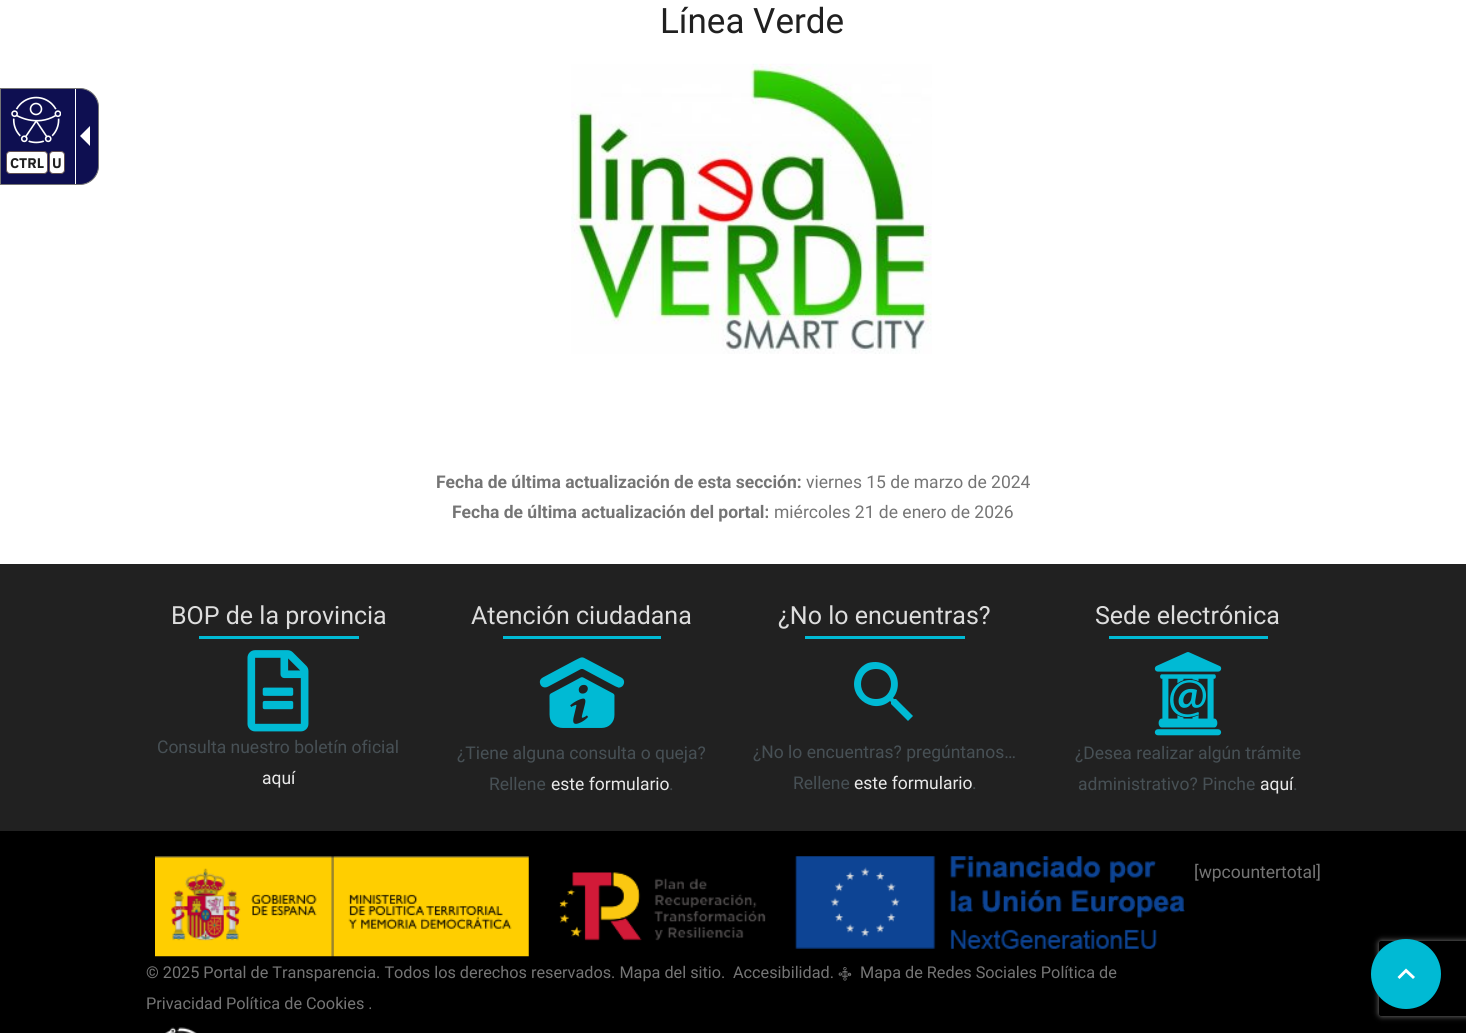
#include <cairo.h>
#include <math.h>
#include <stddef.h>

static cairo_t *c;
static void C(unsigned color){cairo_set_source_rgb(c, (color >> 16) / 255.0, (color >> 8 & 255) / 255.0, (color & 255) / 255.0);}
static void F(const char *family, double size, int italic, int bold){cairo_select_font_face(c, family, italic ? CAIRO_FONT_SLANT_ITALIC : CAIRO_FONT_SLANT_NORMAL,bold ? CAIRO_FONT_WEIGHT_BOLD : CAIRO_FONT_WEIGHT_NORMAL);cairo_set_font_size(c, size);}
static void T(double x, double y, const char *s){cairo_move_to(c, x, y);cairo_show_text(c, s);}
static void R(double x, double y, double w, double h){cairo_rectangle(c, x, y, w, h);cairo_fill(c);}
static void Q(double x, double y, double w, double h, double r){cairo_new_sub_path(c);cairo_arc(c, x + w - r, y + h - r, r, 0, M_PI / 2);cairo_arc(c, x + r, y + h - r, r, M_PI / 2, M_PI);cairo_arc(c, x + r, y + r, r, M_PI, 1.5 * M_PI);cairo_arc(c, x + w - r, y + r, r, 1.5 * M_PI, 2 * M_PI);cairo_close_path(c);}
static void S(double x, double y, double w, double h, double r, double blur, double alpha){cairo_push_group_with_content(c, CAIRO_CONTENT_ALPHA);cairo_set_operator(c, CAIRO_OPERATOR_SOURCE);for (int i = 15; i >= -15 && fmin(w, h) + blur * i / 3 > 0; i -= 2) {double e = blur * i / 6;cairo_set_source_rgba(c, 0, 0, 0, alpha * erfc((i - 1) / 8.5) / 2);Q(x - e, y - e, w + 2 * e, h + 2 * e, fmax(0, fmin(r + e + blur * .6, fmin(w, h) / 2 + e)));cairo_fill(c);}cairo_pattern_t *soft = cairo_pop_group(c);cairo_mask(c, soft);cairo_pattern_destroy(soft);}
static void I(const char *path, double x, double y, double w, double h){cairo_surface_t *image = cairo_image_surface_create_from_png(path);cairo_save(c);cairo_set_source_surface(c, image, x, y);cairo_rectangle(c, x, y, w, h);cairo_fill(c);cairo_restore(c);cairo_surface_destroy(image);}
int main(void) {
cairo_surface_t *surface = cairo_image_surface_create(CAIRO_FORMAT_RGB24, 1466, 1033);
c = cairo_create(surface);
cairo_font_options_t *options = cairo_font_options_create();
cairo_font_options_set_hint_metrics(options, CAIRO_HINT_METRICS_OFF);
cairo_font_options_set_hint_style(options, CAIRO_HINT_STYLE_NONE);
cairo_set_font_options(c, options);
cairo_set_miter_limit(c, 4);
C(0xffffff);
cairo_paint(c);
C(0x0e0f51);
cairo_new_path(c);
cairo_move_to(c,.5,88.5);
cairo_line_to(c,80,88.5);
cairo_curve_to(c,90,88.5,98.5,97,98.5,107);
cairo_line_to(c,98.5,166);
cairo_curve_to(c,98.5,176,90,184.5,80,184.5);
cairo_line_to(c,.5,184.5);
cairo_close_path(c);
cairo_fill_preserve(c);
C(0x757575);
cairo_set_line_width(c,1);
cairo_stroke(c);
C(0xffffff);
cairo_new_path(c);
cairo_move_to(c,90,126);
cairo_line_to(c,90,146);
cairo_line_to(c,80,136);
cairo_close_path(c);
cairo_fill(c);
R(75,89,1,95);
I("1.png",11,96,50,48);
Q(6.5,151.5,41,22,3.5);
cairo_fill_preserve(c);
C(0x635252);
cairo_stroke(c);
F("IBM Plex Sans",14,0,1);
C(0x202020);
T(10,168,"CTRL");
C(0xffffff);
Q(49.5,151.5,15,22,3.5);
cairo_fill_preserve(c);
C(0x635252);
cairo_stroke(c);
C(0x202020);
T(52,168,"U");
F("Roboto",35,0,0);
T(660,33,"Línea Verde");
I("2.png",571,63,361,291);
F("Roboto",17.5,0,1);
C(0x757575);
T(436,488,"Fecha de última actualización de esta sección:");
F("Roboto",17.5,0,0);
T(806,488,"viernes 15 de marzo de 2024");
F("Roboto",17.5,0,1);
T(452,518,"Fecha de última actualización del portal:");
F("Roboto",17.5,0,0);
T(774,518,"miércoles 21 de enero de 2026");
C(0x212121);
R(0,564,1466,267);
F("Roboto",25,0,0);
C(0xdddddd);
T(171,624,"BOP de la provincia");
C(0x00bad4);
R(199,636,160,3);
I("3.png",247,650,62,82);
F("Roboto",17.5,0,0);
C(0x475055);
T(157,753,"Consulta nuestro boletín oficial");
C(0xe9e9e9);
T(262,784,"aquí");
F("Roboto",25,0,0);
C(0xdddddd);
T(471,624,"Atención ciudadana");
C(0x00bad4);
R(503,636,158,3);
F("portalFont",88,0,0);
T(538,720,"P");
F("Roboto",17.5,0,0);
C(0x475055);
T(457,759,"¿Tiene alguna consulta o queja?");
T(489,790,"Rellene");
C(0xe9e9e9);
T(551,790,"este formulario");
C(0x475055);
T(669,790,".");
F("Roboto",25,0,0);
C(0xdddddd);
T(778,624,"¿No lo encuentras?");
C(0x00bad4);
R(805,636,160,3);
cairo_new_path(c);
cairo_move_to(c,896,699);
cairo_line_to(c,894,699);
cairo_line_to(c,893,698);
cairo_curve_to(c,901,688,899,673,888,666);
cairo_curve_to(c,882,662,875,661,868,663);
cairo_curve_to(c,863,665,859,669,857,673);
cairo_curve_to(c,845,695,872,716,890,701);
cairo_line_to(c,891,702);
cairo_line_to(c,891,704);
cairo_line_to(c,908,721);
cairo_line_to(c,913,716);
cairo_close_path(c);
cairo_move_to(c,876,699);
cairo_curve_to(c,856,699,856,669,876,669);
cairo_curve_to(c,896,669,896,699,876,699);
cairo_close_path(c);
cairo_fill(c);
F("Roboto",17.5,0,0);
C(0x475055);
T(753,758,"¿No lo encuentras? pregúntanos…");
T(793,789,"Rellene");
C(0xe9e9e9);
T(854,789,"este formulario");
C(0x475055);
T(972,789,".");
F("Roboto",25,0,0);
C(0xdddddd);
T(1095,624,"Sede electrónica");
C(0x00bad4);
R(1109,636,159,3);
F("portalFont",88,0,0);
T(1144,720,"_");
F("Roboto",17.5,0,0);
C(0x475055);
T(1075,759,"¿Desea realizar algún trámite");
T(1078,790,"administrativo? Pinche");
C(0xe9e9e9);
T(1260,790,"aquí");
C(0x475055);
T(1293,790,".");
C(0x000000);
R(0,831,1466,202);
C(0x757575);
T(1194,878,"[wpcountertotal]");
I("4.png",155,856,1030,101);
F("Roboto",16.25,0,0);
T(146,978,"© 2025 Portal de Transparencia. Todos los derechos reservados. Mapa del sitio.");
T(733,978,"Accesibilidad.");
F("portalFont",14,0,0);
T(838,978,"q");
F("Roboto",16.25,0,0);
T(860,978,"Mapa de Redes Sociales Política de");
T(146,1009,"Privacidad Política de Cookies .");
I("5.png",165,1027,32,6);
cairo_save(c);
cairo_set_fill_rule(c,CAIRO_FILL_RULE_EVEN_ODD);
cairo_new_path(c);
cairo_move_to(c,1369,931);
cairo_line_to(c,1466,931);
cairo_line_to(c,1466,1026);
cairo_line_to(c,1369,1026);
cairo_close_path(c);
cairo_move_to(c,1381.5,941);
cairo_line_to(c,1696.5,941);
cairo_curve_to(c,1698,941,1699,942,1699,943.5);
cairo_line_to(c,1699,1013.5);
cairo_curve_to(c,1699,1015,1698,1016,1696.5,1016);
cairo_line_to(c,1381.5,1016);
cairo_curve_to(c,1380,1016,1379,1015,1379,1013.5);
cairo_line_to(c,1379,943.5);
cairo_curve_to(c,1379,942,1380,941,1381.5,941);
cairo_close_path(c);
cairo_clip(c);
C(0x808080);
S(1379,941,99,75,2.5,3,1);
cairo_restore(c);
C(0x00bad4);
cairo_arc(c,1406,974,35,0,2 * M_PI);
cairo_fill(c);
C(0xffffff);
cairo_new_path(c);
cairo_move_to(c,1406,968.5);
cairo_line_to(c,1397.5,977);
cairo_line_to(c,1399.5,979);
cairo_line_to(c,1406,972.5);
cairo_line_to(c,1413,979);
cairo_line_to(c,1415,977);
cairo_close_path(c);
cairo_fill(c);
cairo_surface_write_to_png(surface, "o.png");
cairo_font_options_destroy(options);
cairo_destroy(c);
cairo_surface_destroy(surface);
return 0;
}
